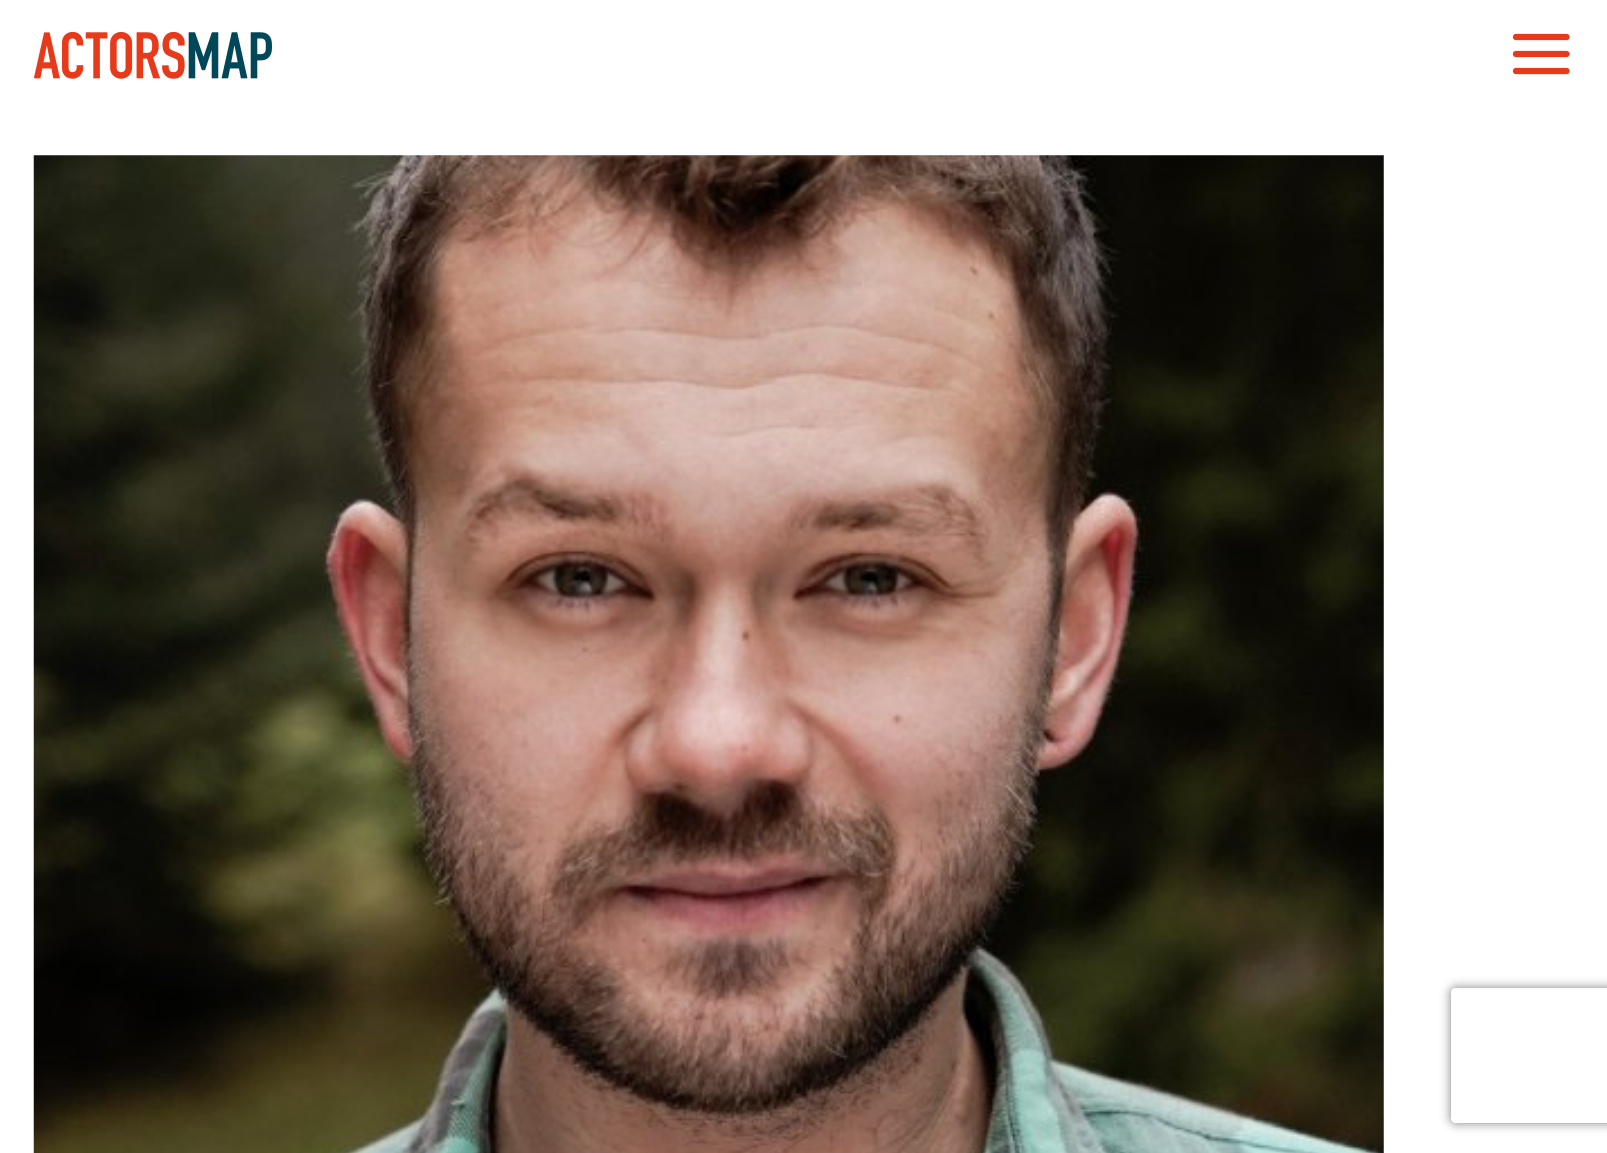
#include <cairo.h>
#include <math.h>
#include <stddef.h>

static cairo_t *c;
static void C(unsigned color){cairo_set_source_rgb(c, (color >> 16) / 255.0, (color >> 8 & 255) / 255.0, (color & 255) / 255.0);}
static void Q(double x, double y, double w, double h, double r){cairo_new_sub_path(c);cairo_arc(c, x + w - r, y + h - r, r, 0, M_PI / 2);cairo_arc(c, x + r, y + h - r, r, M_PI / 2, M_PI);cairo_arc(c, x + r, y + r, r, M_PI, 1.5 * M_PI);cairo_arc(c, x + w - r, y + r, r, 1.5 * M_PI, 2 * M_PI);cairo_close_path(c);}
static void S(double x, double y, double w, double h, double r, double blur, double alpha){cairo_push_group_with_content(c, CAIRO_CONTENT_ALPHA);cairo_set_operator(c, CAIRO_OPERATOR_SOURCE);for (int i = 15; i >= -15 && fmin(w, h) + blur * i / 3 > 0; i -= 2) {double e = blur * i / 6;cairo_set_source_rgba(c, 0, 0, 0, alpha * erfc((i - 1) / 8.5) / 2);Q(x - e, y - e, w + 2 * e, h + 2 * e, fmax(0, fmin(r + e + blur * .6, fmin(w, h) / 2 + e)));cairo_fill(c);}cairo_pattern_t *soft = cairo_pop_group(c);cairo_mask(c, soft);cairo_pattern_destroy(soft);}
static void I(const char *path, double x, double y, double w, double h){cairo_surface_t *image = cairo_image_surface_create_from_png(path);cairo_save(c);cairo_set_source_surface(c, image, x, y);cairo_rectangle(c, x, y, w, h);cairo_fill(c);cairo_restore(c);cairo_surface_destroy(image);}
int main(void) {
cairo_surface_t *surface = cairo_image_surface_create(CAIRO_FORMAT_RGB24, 1607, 1153);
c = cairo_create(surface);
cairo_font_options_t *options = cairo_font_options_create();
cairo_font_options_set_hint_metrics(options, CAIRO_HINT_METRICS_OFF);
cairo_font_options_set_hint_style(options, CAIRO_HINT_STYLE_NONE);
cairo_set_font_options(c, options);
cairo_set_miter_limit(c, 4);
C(0xffffff);
cairo_paint(c);
I("1.png",34,32,238,47);
cairo_new_path(c);
cairo_move_to(c,1516,37);
cairo_line_to(c,1566.5,37);
cairo_move_to(c,1516,54);
cairo_line_to(c,1566.5,54);
cairo_move_to(c,1516,71);
cairo_line_to(c,1566.5,71);
C(0xe63a1b);
cairo_set_line_width(c,6.3);
cairo_set_line_cap(c,CAIRO_LINE_CAP_ROUND);
cairo_stroke(c);
I("2.png",33,155,1351,998);
cairo_save(c);
cairo_set_fill_rule(c,CAIRO_FILL_RULE_EVEN_ODD);
cairo_new_path(c);
cairo_move_to(c,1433,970);
cairo_line_to(c,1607,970);
cairo_line_to(c,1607,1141);
cairo_line_to(c,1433,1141);
cairo_close_path(c);
cairo_move_to(c,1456,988);
cairo_line_to(c,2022,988);
cairo_curve_to(c,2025,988,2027,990,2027,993);
cairo_line_to(c,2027,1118);
cairo_curve_to(c,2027,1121,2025,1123,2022,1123);
cairo_line_to(c,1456,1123);
cairo_curve_to(c,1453,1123,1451,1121,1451,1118);
cairo_line_to(c,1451,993);
cairo_curve_to(c,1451,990,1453,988,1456,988);
cairo_close_path(c);
cairo_clip(c);
C(0x808080);
S(1451,988,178,135,5,5.5,1);
cairo_restore(c);
cairo_surface_write_to_png(surface, "o.png");
cairo_font_options_destroy(options);
cairo_destroy(c);
cairo_surface_destroy(surface);
return 0;
}
